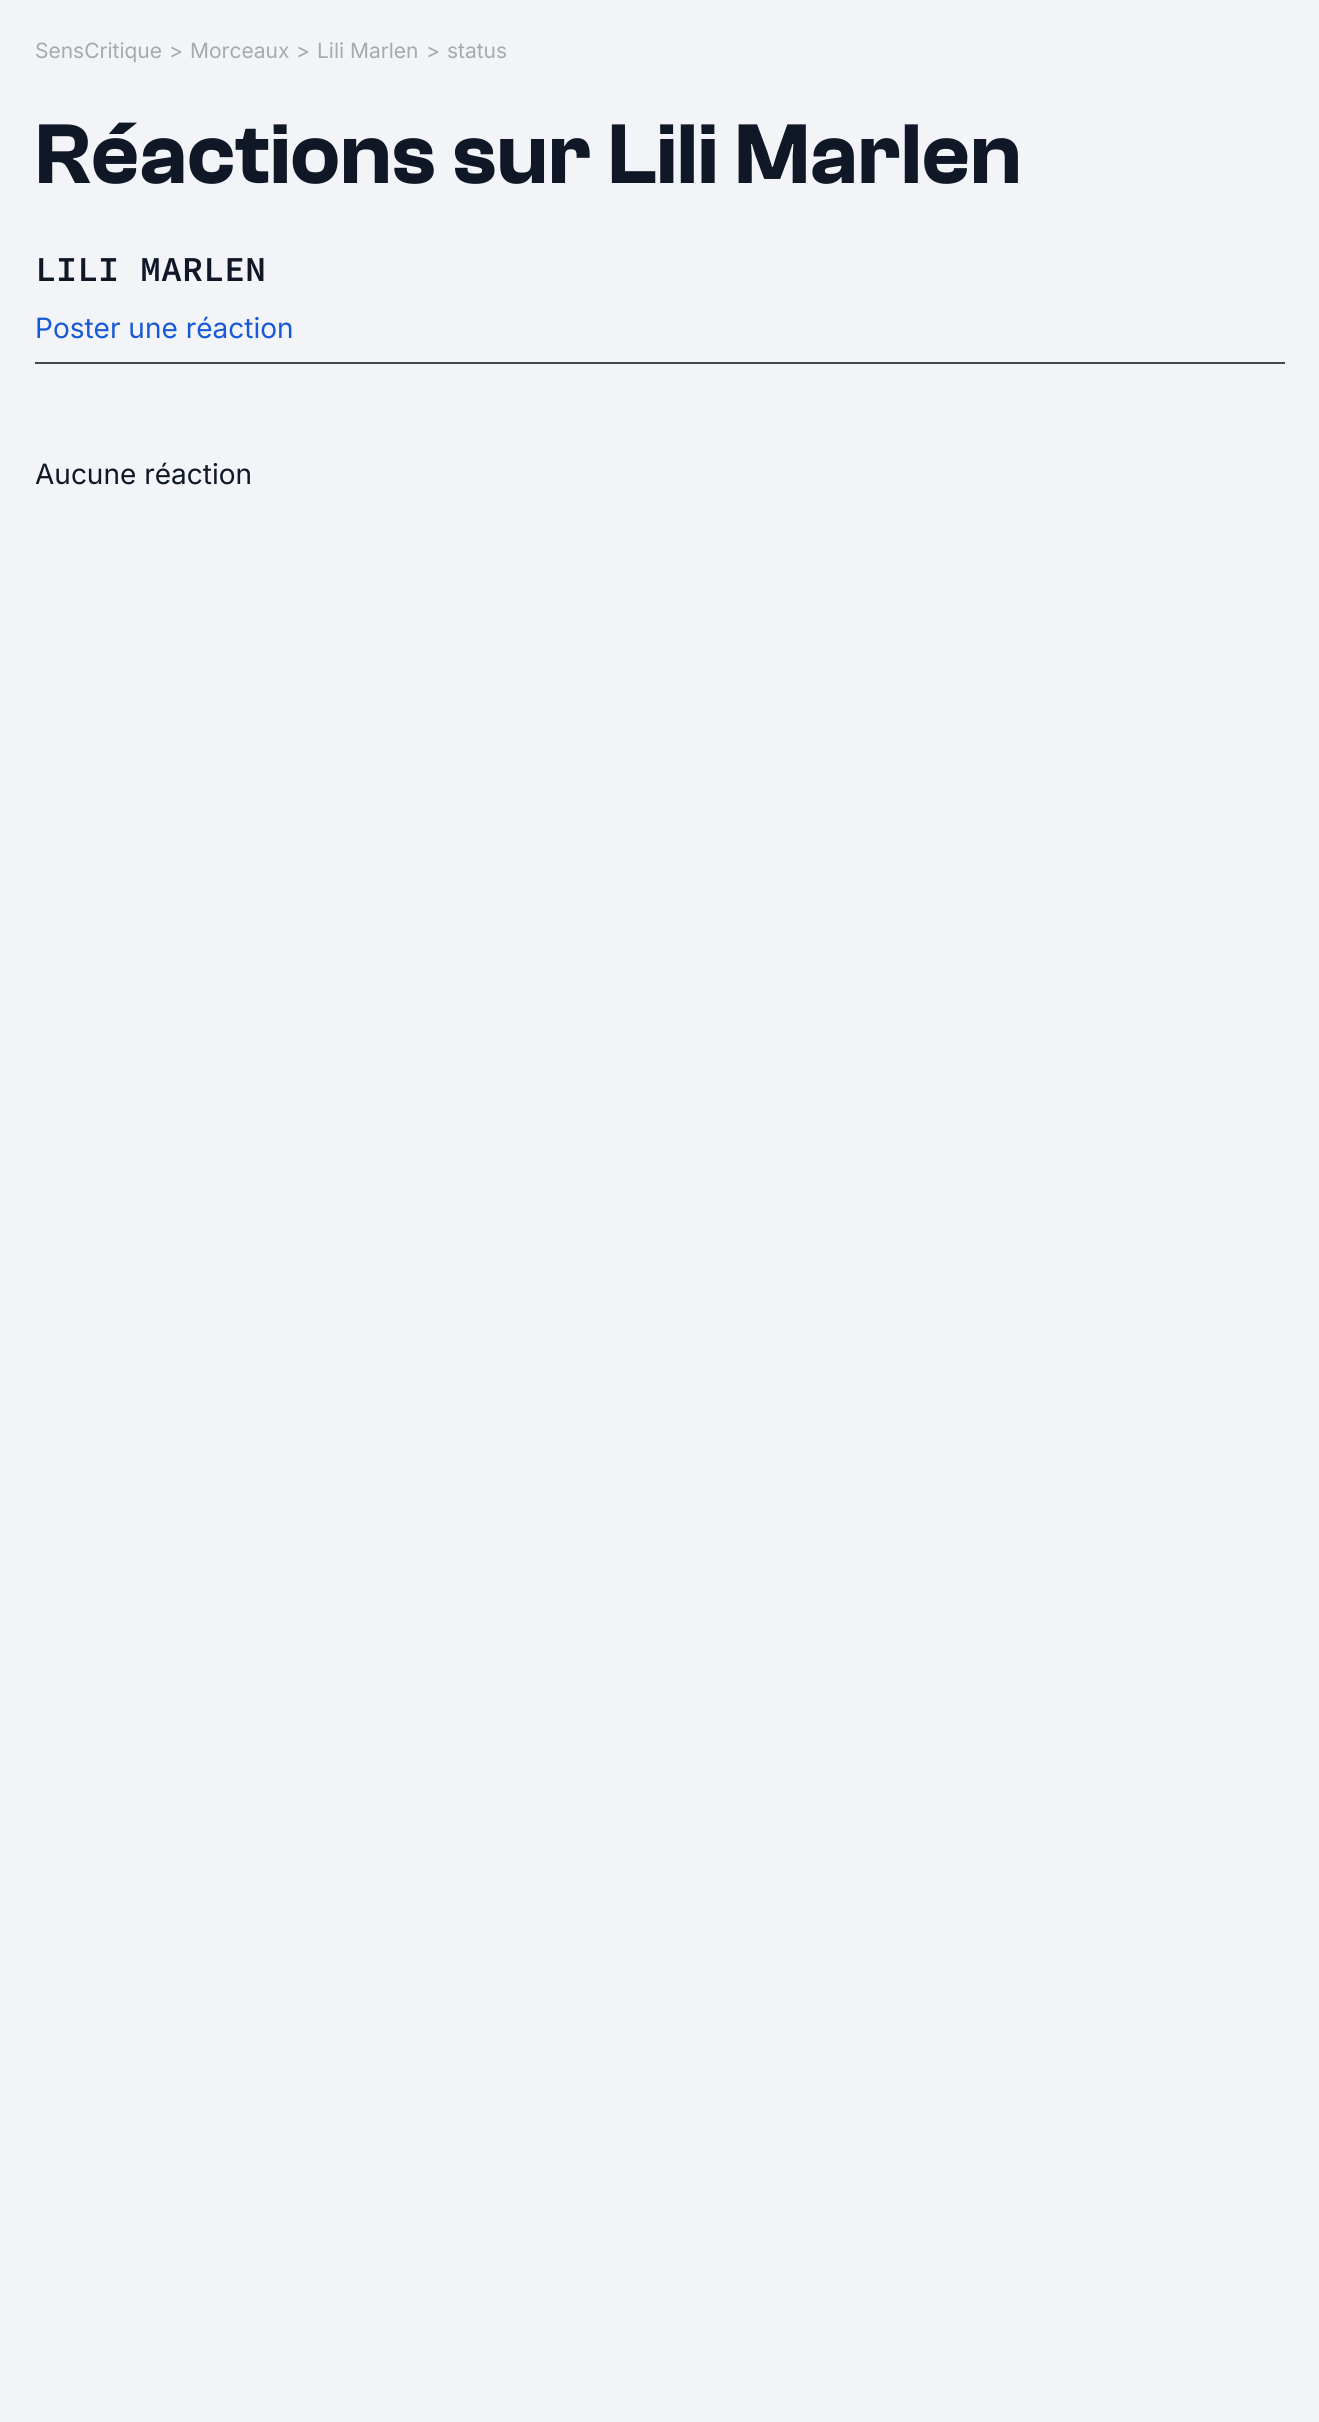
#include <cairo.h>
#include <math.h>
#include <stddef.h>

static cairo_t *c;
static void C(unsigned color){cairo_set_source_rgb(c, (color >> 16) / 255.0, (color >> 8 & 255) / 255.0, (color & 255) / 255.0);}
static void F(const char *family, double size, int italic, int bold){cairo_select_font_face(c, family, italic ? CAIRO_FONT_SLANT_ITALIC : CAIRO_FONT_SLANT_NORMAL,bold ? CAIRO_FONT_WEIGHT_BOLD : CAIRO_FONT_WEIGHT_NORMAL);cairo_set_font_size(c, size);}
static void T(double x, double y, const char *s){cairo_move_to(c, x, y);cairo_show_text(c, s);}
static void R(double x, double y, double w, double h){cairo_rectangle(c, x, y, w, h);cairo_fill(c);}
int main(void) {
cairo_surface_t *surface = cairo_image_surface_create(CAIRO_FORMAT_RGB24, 1319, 2422);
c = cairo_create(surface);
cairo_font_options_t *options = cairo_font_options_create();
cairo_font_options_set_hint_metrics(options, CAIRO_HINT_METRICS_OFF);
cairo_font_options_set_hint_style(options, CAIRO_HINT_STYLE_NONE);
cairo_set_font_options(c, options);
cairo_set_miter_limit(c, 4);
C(0xf2f4f7);
cairo_paint(c);
F("Inter",21,0,0);
C(0xa6aaaf);
T(35,58,"SensCritique");
T(169,58,">");
T(190,58,"Morceaux");
T(296,58,">");
T(317,58,"Lili Marlen");
T(426,58,">");
T(447,58,"status");
F("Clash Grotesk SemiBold",87.5,0,0);
C(0x101828);
T(35,183,"Réactions sur Lili Marlen");
C(0x434850);
R(35,362,1250,2);
F("Source Code Pro SemiBold",35,0,0);
C(0x101828);
T(35,281,"LILI MARLEN");
F("Inter",28,0,0);
C(0x1959d7);
T(35,338,"Poster une réaction");
C(0x101828);
T(35,484,"Aucune réaction");
cairo_surface_write_to_png(surface, "o.png");
cairo_font_options_destroy(options);
cairo_destroy(c);
cairo_surface_destroy(surface);
return 0;
}
